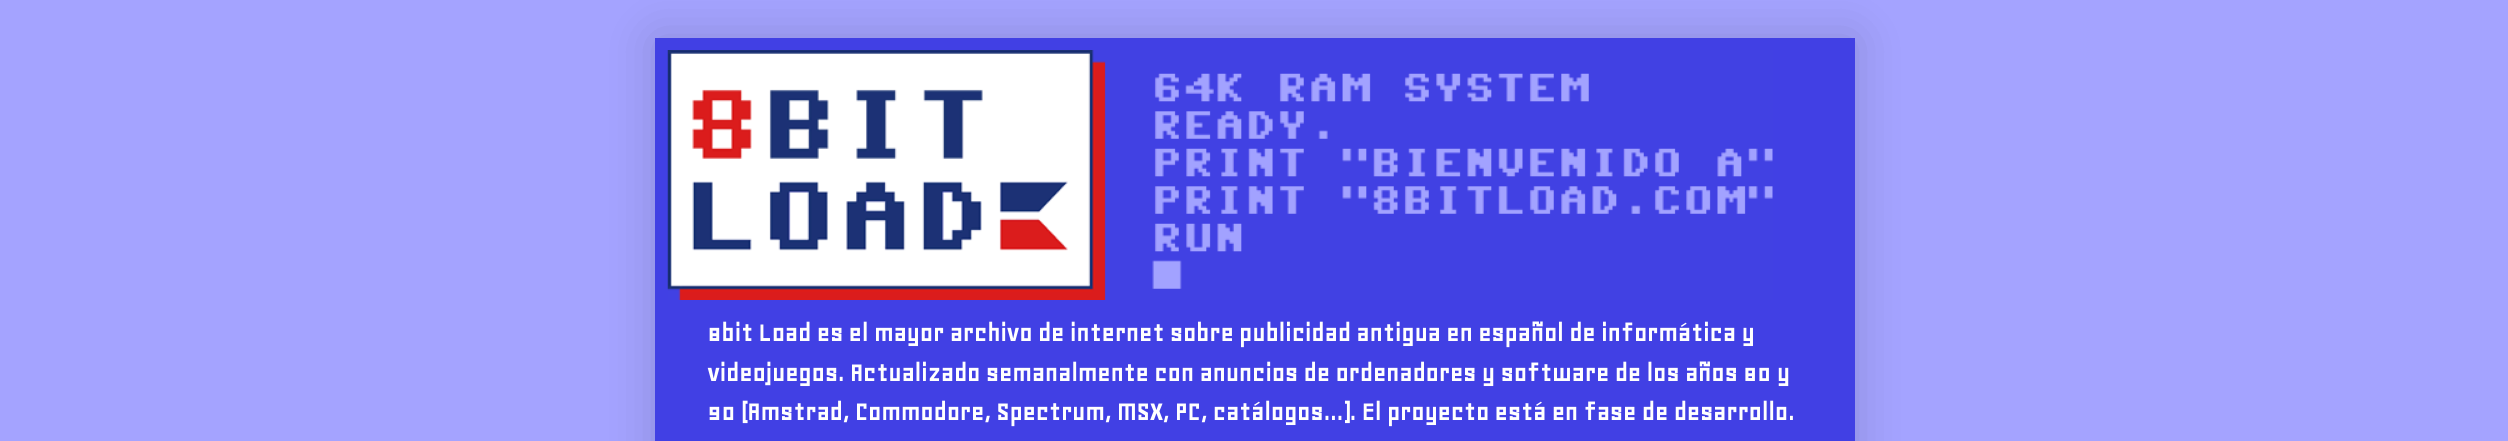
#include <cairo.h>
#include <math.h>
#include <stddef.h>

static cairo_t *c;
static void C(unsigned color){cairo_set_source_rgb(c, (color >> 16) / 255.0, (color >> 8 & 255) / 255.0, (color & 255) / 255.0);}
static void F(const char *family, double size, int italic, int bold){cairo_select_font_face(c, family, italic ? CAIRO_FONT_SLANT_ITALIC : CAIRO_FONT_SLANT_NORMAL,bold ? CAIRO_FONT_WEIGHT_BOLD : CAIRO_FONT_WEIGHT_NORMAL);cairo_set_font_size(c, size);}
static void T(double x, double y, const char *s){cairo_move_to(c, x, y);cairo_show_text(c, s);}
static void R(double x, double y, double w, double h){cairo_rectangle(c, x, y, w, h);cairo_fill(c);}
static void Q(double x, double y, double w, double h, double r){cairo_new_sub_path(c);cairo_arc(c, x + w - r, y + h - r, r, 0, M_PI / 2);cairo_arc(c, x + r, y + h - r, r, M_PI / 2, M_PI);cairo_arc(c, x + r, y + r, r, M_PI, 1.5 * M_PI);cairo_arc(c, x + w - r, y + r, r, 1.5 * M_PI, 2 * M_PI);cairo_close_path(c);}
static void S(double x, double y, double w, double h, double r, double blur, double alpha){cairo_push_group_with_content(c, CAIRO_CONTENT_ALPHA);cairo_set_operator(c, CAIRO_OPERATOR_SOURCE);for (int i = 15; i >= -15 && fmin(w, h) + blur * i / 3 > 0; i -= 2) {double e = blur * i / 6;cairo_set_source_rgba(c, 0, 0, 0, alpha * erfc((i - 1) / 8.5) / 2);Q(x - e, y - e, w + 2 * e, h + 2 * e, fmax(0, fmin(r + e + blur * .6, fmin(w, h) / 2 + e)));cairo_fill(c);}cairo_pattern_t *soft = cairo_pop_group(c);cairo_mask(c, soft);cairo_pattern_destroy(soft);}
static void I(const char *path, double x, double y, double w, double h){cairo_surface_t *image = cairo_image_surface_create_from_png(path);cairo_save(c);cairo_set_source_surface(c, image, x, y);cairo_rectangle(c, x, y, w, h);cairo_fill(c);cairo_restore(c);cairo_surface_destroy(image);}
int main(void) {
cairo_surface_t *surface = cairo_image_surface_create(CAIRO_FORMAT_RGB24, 2508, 441);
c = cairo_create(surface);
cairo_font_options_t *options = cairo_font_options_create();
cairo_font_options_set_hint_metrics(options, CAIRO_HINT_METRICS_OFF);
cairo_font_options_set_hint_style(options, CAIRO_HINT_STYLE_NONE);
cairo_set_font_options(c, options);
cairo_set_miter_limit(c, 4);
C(0xa4a3ff);
cairo_paint(c);
C(0x000000);
S(655,38,1200,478,0,25,.15);
C(0x4140e4);
R(655,38,1200,403);
I("1.png",667,50,1106,250);
F("Geo",28,0,1);
C(0xffffff);
T(707,341,"8bit Load es el mayor archivo de internet sobre publicidad antigua en español de informática y");
T(707,381,"videojuegos. Actualizado semanalmente con anuncios de ordenadores y software de los años 80 y");
T(707,420,"90 (Amstrad, Commodore, Spectrum, MSX, PC, catálogos...). El proyecto está en fase de desarrollo.");
cairo_surface_write_to_png(surface, "o.png");
cairo_font_options_destroy(options);
cairo_destroy(c);
cairo_surface_destroy(surface);
return 0;
}
